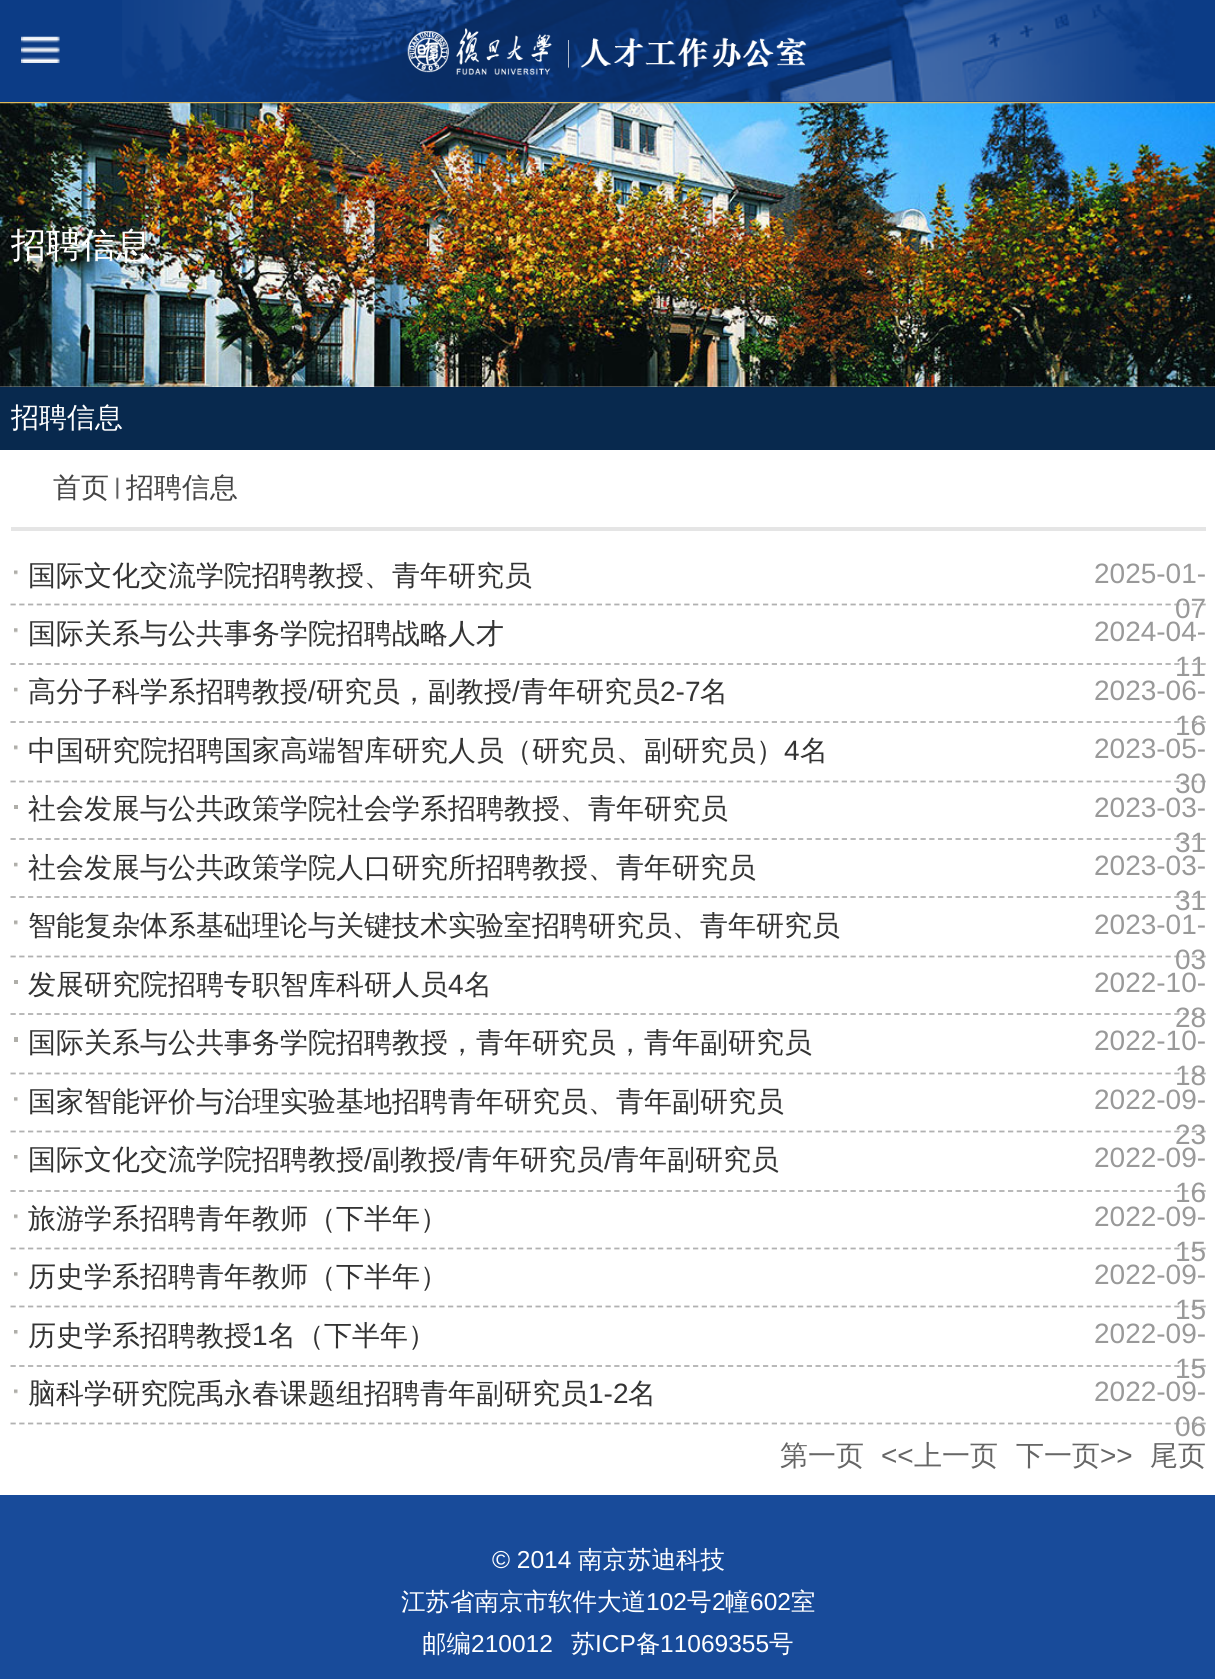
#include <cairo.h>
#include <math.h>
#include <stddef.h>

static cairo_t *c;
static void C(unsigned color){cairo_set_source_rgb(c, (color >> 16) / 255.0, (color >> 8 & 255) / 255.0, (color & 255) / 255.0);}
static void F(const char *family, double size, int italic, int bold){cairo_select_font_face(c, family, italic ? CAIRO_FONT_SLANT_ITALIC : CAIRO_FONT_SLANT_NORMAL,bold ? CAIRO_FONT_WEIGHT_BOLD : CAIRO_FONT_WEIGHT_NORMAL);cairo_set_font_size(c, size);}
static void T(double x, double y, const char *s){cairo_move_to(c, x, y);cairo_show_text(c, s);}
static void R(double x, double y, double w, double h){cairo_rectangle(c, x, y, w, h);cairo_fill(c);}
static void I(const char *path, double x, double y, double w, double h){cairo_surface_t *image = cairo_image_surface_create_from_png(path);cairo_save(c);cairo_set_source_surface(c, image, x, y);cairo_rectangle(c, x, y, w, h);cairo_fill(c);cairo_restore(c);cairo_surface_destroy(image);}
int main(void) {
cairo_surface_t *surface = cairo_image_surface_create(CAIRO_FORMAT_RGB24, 1215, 1679);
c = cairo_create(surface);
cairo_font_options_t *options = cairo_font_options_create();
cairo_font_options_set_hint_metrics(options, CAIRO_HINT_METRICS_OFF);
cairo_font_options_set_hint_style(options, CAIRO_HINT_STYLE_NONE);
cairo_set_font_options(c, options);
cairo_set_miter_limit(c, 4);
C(0xffffff);
cairo_paint(c);
C(0x0c3c86);
R(0,0,1215,102);
I("1.png",122,0,1053,102);
I("2.png",21,36,39,27);
I("3.png",407,28,400,47);
C(0xdfba5d);
R(0,102,1215,2);
I("4.png",0,103,1215,284);
cairo_save(c);
cairo_rectangle(c,11,224,1195,42);
cairo_clip(c);
F("WenQuanYi Zen Hei Medium",35,0,0);
C(0xffffff);
T(11,257,"招聘信息");
cairo_restore(c);
C(0x08294e);
R(0,387,1215,63);
F("WenQuanYi Zen Hei Medium",28,0,0);
C(0xffffff);
T(11,427,"招聘信息");
C(0xe5e5e5);
R(11,527,1195,4);
C(0x454545);
T(53,497,"首页");
I("5.png",116,477,3,23);
T(126,497,"招聘信息");
I("6.png",14,570,4,5);
cairo_new_path(c);
cairo_move_to(c,10.5,604.5);
cairo_line_to(c,1206,604.5);
C(0xb1b1b1);
cairo_set_line_width(c,1.8);
cairo_set_dash(c,(double[]){5.25,3.5},2,0);
cairo_stroke(c);
C(0x333333);
T(28,585,"国际文化交流学院招聘教授、青年研究员");
F("Liberation Sans",28,0,0);
C(0x999999);
T(1094,583,"2025-01-");
T(1175,618,"07");
I("7.png",14,628,4,5);
cairo_new_path(c);
cairo_move_to(c,10.5,664);
cairo_line_to(c,1206,664);
C(0xb1b1b1);
cairo_stroke(c);
F("WenQuanYi Zen Hei Medium",28,0,0);
C(0x333333);
T(28,643,"国际关系与公共事务学院招聘战略人才");
F("Liberation Sans",28,0,0);
C(0x999999);
T(1094,641,"2024-04-");
T(1175,676,"11");
I("8.png",14,687,4,5);
cairo_new_path(c);
cairo_move_to(c,10.5,722);
cairo_line_to(c,1206,722);
C(0xb1b1b1);
cairo_stroke(c);
F("WenQuanYi Zen Hei Medium",28,0,0);
C(0x333333);
T(28,701,"高分子科学系招聘教授");
F("Liberation Sans",28,0,0);
T(308,701,"/");
F("WenQuanYi Zen Hei Medium",28,0,0);
T(316,701,"研究员，副教授");
F("Liberation Sans",28,0,0);
T(512,701,"/");
F("WenQuanYi Zen Hei Medium",28,0,0);
T(520,701,"青年研究员");
F("Liberation Sans",28,0,0);
T(660,701,"2-7");
F("WenQuanYi Zen Hei Medium",28,0,0);
T(700,701,"名");
F("Liberation Sans",28,0,0);
C(0x999999);
T(1094,700,"2023-06-");
T(1175,735,"16");
I("9.png",14,745,4,5);
cairo_new_path(c);
cairo_move_to(c,10.5,781.5);
cairo_line_to(c,1206,781.5);
C(0xb1b1b1);
cairo_stroke(c);
F("WenQuanYi Zen Hei Medium",28,0,0);
C(0x333333);
T(28,760,"中国研究院招聘国家高端智库研究人员（研究员、副研究员）");
F("Liberation Sans",28,0,0);
T(784,760,"4");
F("WenQuanYi Zen Hei Medium",28,0,0);
T(800,760,"名");
F("Liberation Sans",28,0,0);
C(0x999999);
T(1094,758,"2023-05-");
T(1175,793,"30");
C(0xafaea9);
R(14,805,4,4);
cairo_new_path(c);
cairo_move_to(c,10.5,839);
cairo_line_to(c,1206,839);
C(0xb1b1b1);
cairo_stroke(c);
F("WenQuanYi Zen Hei Medium",28,0,0);
C(0x333333);
T(28,818,"社会发展与公共政策学院社会学系招聘教授、青年研究员");
F("Liberation Sans",28,0,0);
C(0x999999);
T(1094,817,"2023-03-");
T(1175,852,"31");
I("8.png",14,862,4,5);
cairo_new_path(c);
cairo_move_to(c,10.5,897);
cairo_line_to(c,1206,897);
C(0xb1b1b1);
cairo_stroke(c);
F("WenQuanYi Zen Hei Medium",28,0,0);
C(0x333333);
T(28,877,"社会发展与公共政策学院人口研究所招聘教授、青年研究员");
F("Liberation Sans",28,0,0);
C(0x999999);
T(1094,875,"2023-03-");
T(1175,910,"31");
I("9.png",14,920,4,5);
cairo_new_path(c);
cairo_move_to(c,10.5,956.5);
cairo_line_to(c,1206,956.5);
C(0xb1b1b1);
cairo_stroke(c);
F("WenQuanYi Zen Hei Medium",28,0,0);
C(0x333333);
T(28,935,"智能复杂体系基础理论与关键技术实验室招聘研究员、青年研究员");
F("Liberation Sans",28,0,0);
C(0x999999);
T(1094,934,"2023-01-");
T(1175,969,"03");
C(0xafaea9);
R(14,980,4,4);
cairo_new_path(c);
cairo_move_to(c,10.5,1014);
cairo_line_to(c,1206,1014);
C(0xb1b1b1);
cairo_stroke(c);
F("WenQuanYi Zen Hei Medium",28,0,0);
C(0x333333);
T(28,994,"发展研究院招聘专职智库科研人员");
F("Liberation Sans",28,0,0);
T(448,994,"4");
F("WenQuanYi Zen Hei Medium",28,0,0);
T(464,994,"名");
F("Liberation Sans",28,0,0);
C(0x999999);
T(1094,992,"2022-10-");
T(1175,1027,"28");
C(0xafaea9);
R(14,1037,4,5);
cairo_new_path(c);
cairo_move_to(c,10.5,1073.5);
cairo_line_to(c,1206,1073.5);
C(0xb1b1b1);
cairo_stroke(c);
F("WenQuanYi Zen Hei Medium",28,0,0);
C(0x333333);
T(28,1052,"国际关系与公共事务学院招聘教授，青年研究员，青年副研究员");
F("Liberation Sans",28,0,0);
C(0x999999);
T(1094,1050,"2022-10-");
T(1175,1085,"18");
I("10.png",14,1097,4,5);
cairo_new_path(c);
cairo_move_to(c,10.5,1131.5);
cairo_line_to(c,1206,1131.5);
C(0xb1b1b1);
cairo_stroke(c);
F("WenQuanYi Zen Hei Medium",28,0,0);
C(0x333333);
T(28,1111,"国家智能评价与治理实验基地招聘青年研究员、青年副研究员");
F("Liberation Sans",28,0,0);
C(0x999999);
T(1094,1109,"2022-09-");
T(1175,1144,"23");
I("11.png",14,1155,4,5);
cairo_new_path(c);
cairo_move_to(c,10.5,1191);
cairo_line_to(c,1206,1191);
C(0xb1b1b1);
cairo_stroke(c);
F("WenQuanYi Zen Hei Medium",28,0,0);
C(0x333333);
T(28,1169,"国际文化交流学院招聘教授");
F("Liberation Sans",28,0,0);
T(364,1169,"/");
F("WenQuanYi Zen Hei Medium",28,0,0);
T(372,1169,"副教授");
F("Liberation Sans",28,0,0);
T(456,1169,"/");
F("WenQuanYi Zen Hei Medium",28,0,0);
T(464,1169,"青年研究员");
F("Liberation Sans",28,0,0);
T(604,1169,"/");
F("WenQuanYi Zen Hei Medium",28,0,0);
T(611,1169,"青年副研究员");
F("Liberation Sans",28,0,0);
C(0x999999);
T(1094,1167,"2022-09-");
T(1175,1202,"16");
I("6.png",14,1214,4,5);
cairo_new_path(c);
cairo_move_to(c,10.5,1248.5);
cairo_line_to(c,1206,1248.5);
C(0xb1b1b1);
cairo_stroke(c);
F("WenQuanYi Zen Hei Medium",28,0,0);
C(0x333333);
T(28,1228,"旅游学系招聘青年教师（下半年）");
F("Liberation Sans",28,0,0);
C(0x999999);
T(1094,1226,"2022-09-");
T(1175,1261,"15");
I("10.png",14,1272,4,5);
cairo_new_path(c);
cairo_move_to(c,10.5,1306.5);
cairo_line_to(c,1206,1306.5);
C(0xb1b1b1);
cairo_stroke(c);
F("WenQuanYi Zen Hei Medium",28,0,0);
C(0x333333);
T(28,1286,"历史学系招聘青年教师（下半年）");
F("Liberation Sans",28,0,0);
C(0x999999);
T(1094,1284,"2022-09-");
T(1175,1319,"15");
I("11.png",14,1330,4,5);
cairo_new_path(c);
cairo_move_to(c,10.5,1366);
cairo_line_to(c,1206,1366);
C(0xb1b1b1);
cairo_stroke(c);
F("WenQuanYi Zen Hei Medium",28,0,0);
C(0x333333);
T(28,1345,"历史学系招聘教授");
F("Liberation Sans",28,0,0);
T(252,1345,"1");
F("WenQuanYi Zen Hei Medium",28,0,0);
T(268,1345,"名（下半年）");
F("Liberation Sans",28,0,0);
C(0x999999);
T(1094,1343,"2022-09-");
T(1175,1378,"15");
I("6.png",14,1389,4,5);
cairo_new_path(c);
cairo_move_to(c,10.5,1423.5);
cairo_line_to(c,1206,1423.5);
C(0xb1b1b1);
cairo_stroke(c);
F("WenQuanYi Zen Hei Medium",28,0,0);
C(0x333333);
T(28,1403,"脑科学研究院禹永春课题组招聘青年副研究员");
F("Liberation Sans",28,0,0);
T(588,1403,"1-2");
F("WenQuanYi Zen Hei Medium",28,0,0);
T(628,1403,"名");
F("Liberation Sans",28,0,0);
C(0x999999);
T(1094,1401,"2022-09-");
T(1175,1436,"06");
F("WenQuanYi Zen Hei Medium",28,0,0);
C(0x666666);
T(780,1465,"第一页");
F("Liberation Sans",28,0,0);
T(881,1465,"<<");
F("WenQuanYi Zen Hei Medium",28,0,0);
T(914,1465,"上一页");
T(1016,1465,"下一页");
F("Liberation Sans",28,0,0);
T(1100,1465,">>");
F("WenQuanYi Zen Hei Medium",28,0,0);
T(1150,1465,"尾页");
C(0x184b9a);
R(0,1495,1215,184);
F("Liberation Sans",24.5,0,0);
C(0xffffff);
T(492,1568,"© 2014");
F("WenQuanYi Zen Hei Medium",24.5,0,0);
T(578,1568,"南京苏迪科技");
T(401,1610,"江苏省南京市软件大道");
F("Liberation Sans",24.5,0,0);
T(646,1610,"102");
F("WenQuanYi Zen Hei Medium",24.5,0,0);
T(687,1610,"号");
F("Liberation Sans",24.5,0,0);
T(712,1610,"2");
F("WenQuanYi Zen Hei Medium",24.5,0,0);
T(725,1610,"幢");
F("Liberation Sans",24.5,0,0);
T(750,1610,"602");
F("WenQuanYi Zen Hei Medium",24.5,0,0);
T(791,1610,"室");
T(422,1652,"邮编");
F("Liberation Sans",24.5,0,0);
T(471,1652,"210012");
F("WenQuanYi Zen Hei Medium",24.5,0,0);
T(571,1652,"苏");
F("Liberation Sans",24.5,0,0);
T(595,1652,"ICP");
F("WenQuanYi Zen Hei Medium",24.5,0,0);
T(636,1652,"备");
F("Liberation Sans",24.5,0,0);
T(660,1652,"11069355");
F("WenQuanYi Zen Hei Medium",24.5,0,0);
T(769,1652,"号");
cairo_surface_write_to_png(surface, "o.png");
cairo_font_options_destroy(options);
cairo_destroy(c);
cairo_surface_destroy(surface);
return 0;
}
